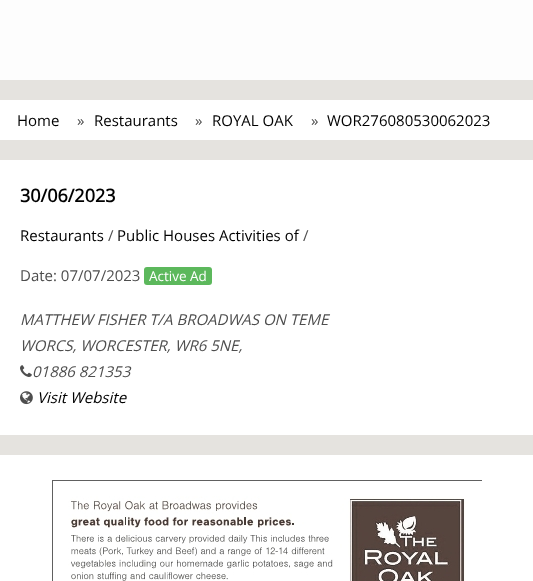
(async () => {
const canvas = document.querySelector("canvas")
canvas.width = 533
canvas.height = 581
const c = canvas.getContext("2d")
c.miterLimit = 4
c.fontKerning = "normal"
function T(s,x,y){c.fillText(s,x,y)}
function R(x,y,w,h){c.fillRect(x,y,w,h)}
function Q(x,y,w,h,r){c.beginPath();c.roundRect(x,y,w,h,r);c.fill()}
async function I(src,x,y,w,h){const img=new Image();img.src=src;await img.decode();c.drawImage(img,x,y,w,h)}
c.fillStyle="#e5e3df"
R(0,0,533,581)
c.fillStyle="#fdfdfd"
R(0,0,533,80)
c.fillStyle="#fff"
R(0,100,533,40)
c.font="15px Open Sans"
c.fillStyle="#000"
T("Home",17,126)
c.fillStyle="#4e4e4e"
T("»",77,126)
c.fillStyle="#000"
T("Restaurants",94,126)
c.fillStyle="#4e4e4e"
T("»",195,126)
c.fillStyle="#000"
T("ROYAL OAK",212,126)
c.fillStyle="#4e4e4e"
T("»",311,126)
c.fillStyle="#000"
T("WOR276080530062023",327,126)
c.fillStyle="#fff"
R(0,160,533,275)
c.font="bold 18px Open Sans"
c.fillStyle="#000"
T("30/06/2023",20,202)
c.font="15px Open Sans"
T("Restaurants",20,241)
c.fillStyle="#4e4e4e"
T("/",108,241)
c.fillStyle="#000"
T("Public Houses Activities of",117,241)
c.fillStyle="#4e4e4e"
T("/",303,241)
T("Date: 07/07/2023",20,281)
c.fillStyle="#5cb85c"
Q(144,267,68,18,3)
c.font="13.5px Open Sans"
c.fillStyle="#fff"
T("Active Ad",149,281)
c.font="italic 15px Open Sans"
c.fillStyle="#4e4e4e"
T("MATTHEW FISHER T/A BROADWAS ON TEME",20,325)
T("WORCS, WORCESTER, WR6 5NE,",20,351)
await I("1.png",20,365,12,12)
T("01886 821353",32,377)
await I("2.png",20,391,13,14)
c.fillStyle="#000"
T("Visit Website",37,403)
c.fillStyle="#fff"
R(0,455,533,126)
await I("3.png",52,480,430,101)
})()
